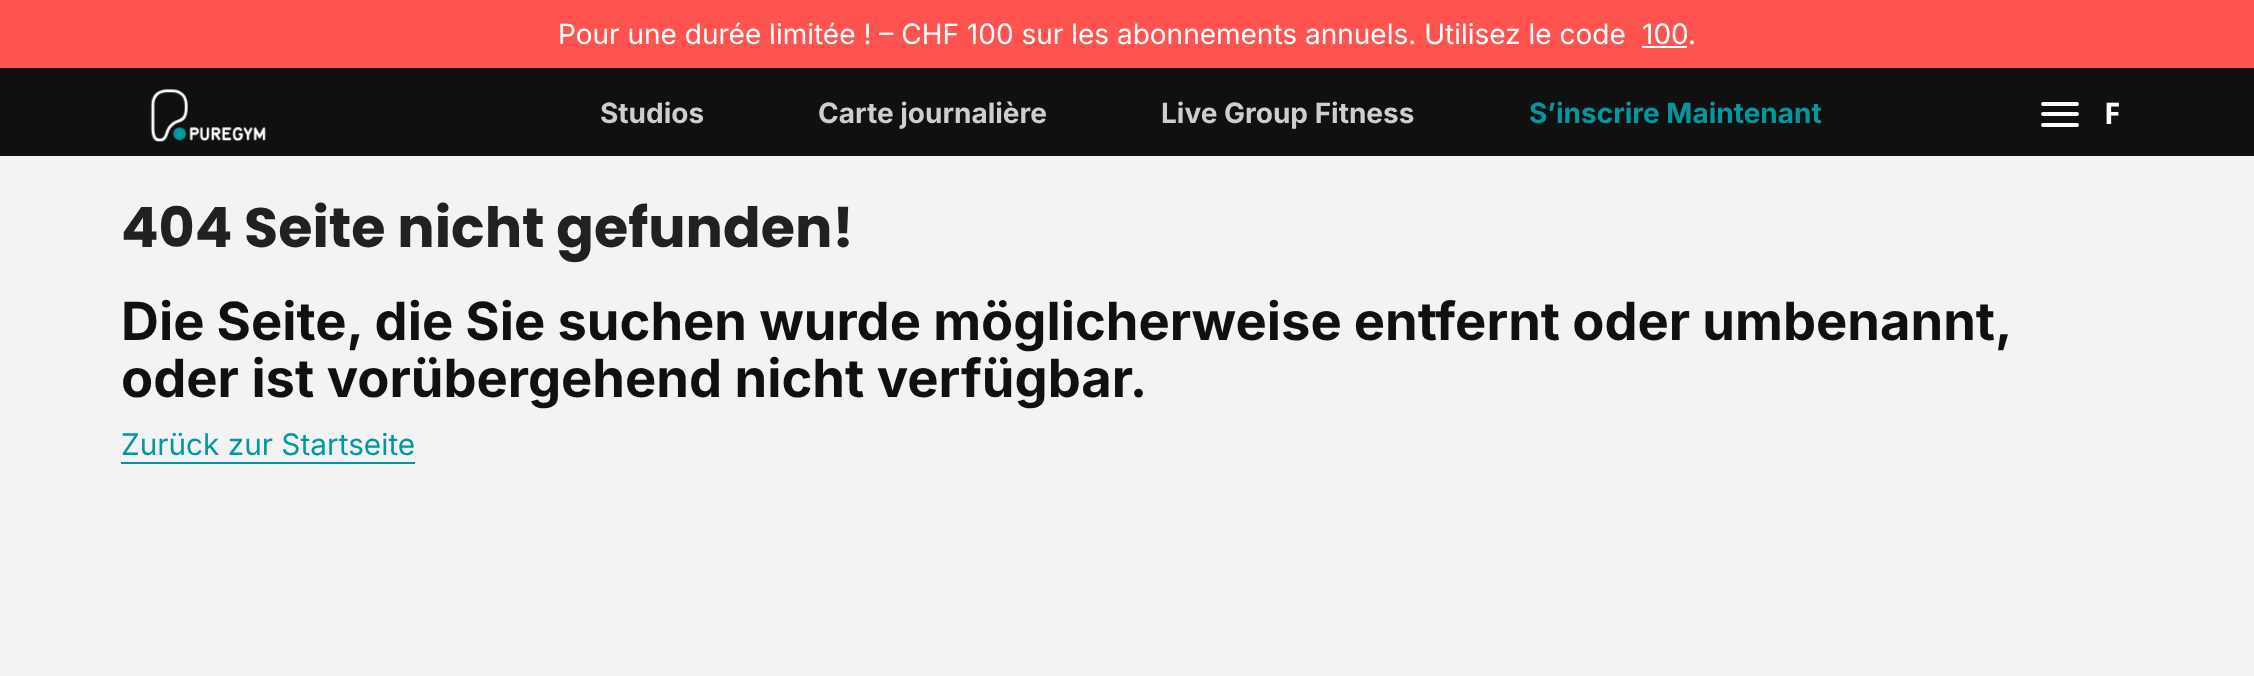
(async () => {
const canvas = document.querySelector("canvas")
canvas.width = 2254
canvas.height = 676
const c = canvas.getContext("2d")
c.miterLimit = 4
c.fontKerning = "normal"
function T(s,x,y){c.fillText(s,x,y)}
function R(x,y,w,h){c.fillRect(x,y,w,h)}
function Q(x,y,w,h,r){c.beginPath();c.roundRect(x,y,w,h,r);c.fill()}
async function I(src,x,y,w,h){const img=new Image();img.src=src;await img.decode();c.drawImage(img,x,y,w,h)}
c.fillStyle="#f3f3f3"
R(0,0,2254,676)
c.fillStyle="#101010"
R(0,68,2254,88)
c.fillStyle="#ff5350"
R(0,0,2254,68)
c.font="28px Inter"
c.fillStyle="#fff"
T("Pour une durée limitée ! – CHF 100 sur les abonnements annuels. Utilisez le code",558,44)
T("100",1642,44)
T(".",1688,44)
R(1642,46,45,2)
await I("1.png",150,89,116,53)
c.font="bold 28px Inter"
c.fillStyle="#cececf"
T("Studios",600,123)
T("Carte journalière",818,123)
T("Live Group Fitness",1161,123)
c.fillStyle="#00999d"
T("S’inscrire Maintenant",1529,123)
c.fillStyle="#fff"
Q(2041,102,38,4,2)
Q(2041,112,38,4,2)
Q(2041,123,38,4,2)
c.font="bold 29.75px Noto Sans"
T("F",2104,124)
c.font="bold 55.5px Poppins"
c.fillStyle="#212121"
T("404 Seite nicht gefunden!",121,247)
c.wordSpacing="-0.25px"
c.font="bold 52.5px Inter"
c.fillStyle="#101010"
T("Die Seite, die Sie suchen wurde möglicherweise entfernt oder umbenannt,",121,340)
c.wordSpacing="0px"
T("oder ist vorübergehend nicht verfügbar.",121,397)
c.font="29.75px Inter"
c.fillStyle="#00999d"
T("Zurück zur Startseite",121,455)
R(121,462,294,2)
})()
